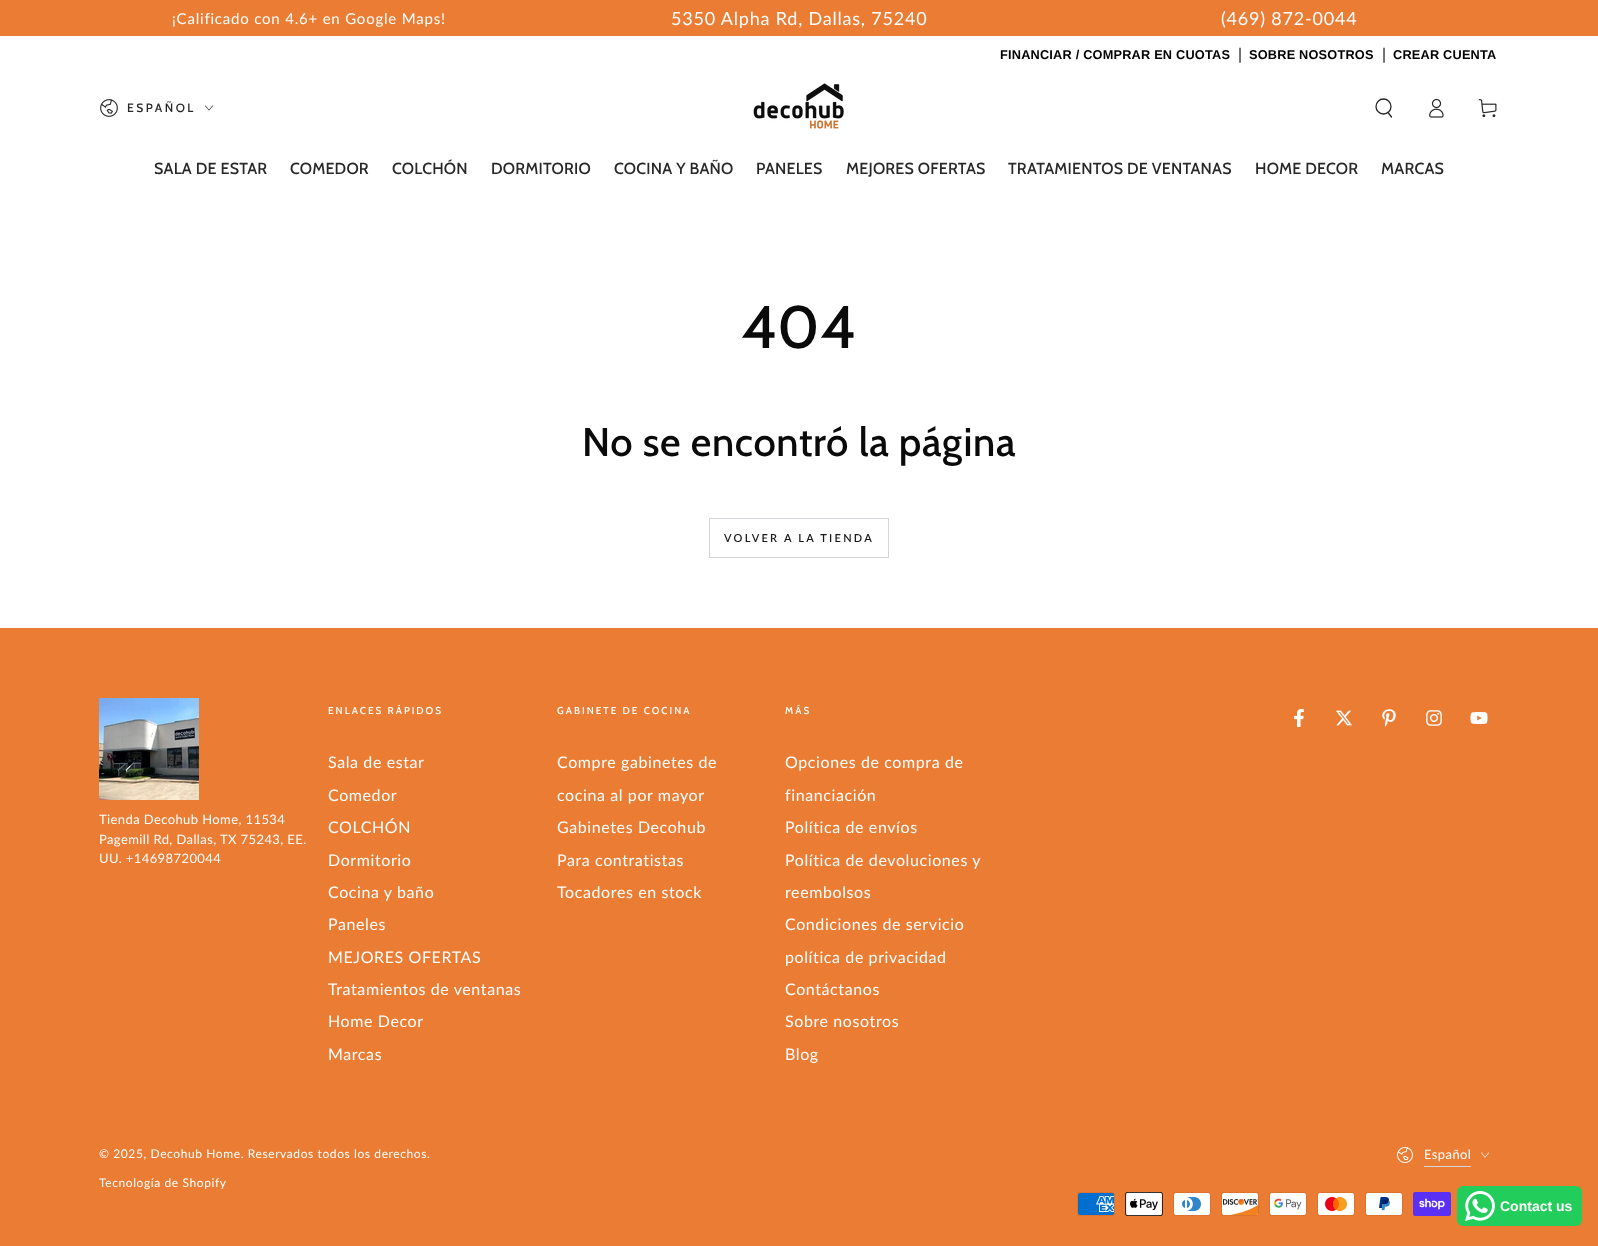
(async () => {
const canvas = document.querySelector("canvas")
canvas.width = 1598
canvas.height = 1246
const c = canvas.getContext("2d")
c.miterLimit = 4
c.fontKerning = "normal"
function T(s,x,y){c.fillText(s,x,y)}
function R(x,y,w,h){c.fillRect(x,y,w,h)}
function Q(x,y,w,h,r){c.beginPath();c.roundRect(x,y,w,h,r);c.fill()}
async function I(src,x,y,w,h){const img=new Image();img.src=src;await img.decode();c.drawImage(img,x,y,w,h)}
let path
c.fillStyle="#fff"
R(0,0,1598,1246)
c.fillStyle="#eb7c33"
R(0,0,1598,36)
c.letterSpacing="0.8px"
c.font="15px Lato"
c.fillStyle="#fff"
T("¡Calificado con 4.6+ en Google Maps!",172,24)
c.font="18px Lato"
T("5350 Alpha Rd, Dallas, 75240",671,25)
T("(469) 872-0044",1221,25)
c.letterSpacing="0.2px"
c.font="bold 12.75px Liberation Sans"
c.fillStyle="#000"
T("FINANCIAR / COMPRAR EN CUOTAS",1000,59)
c.letterSpacing="0.6px"
c.font="16px Lato"
T("|",1238,60)
c.letterSpacing="0.2px"
c.font="bold 12.75px Liberation Sans"
T("SOBRE NOSOTROS",1249,59)
c.letterSpacing="0.6px"
c.font="16px Lato"
T("|",1382,60)
c.letterSpacing="0.2px"
c.font="bold 12.75px Liberation Sans"
T("CREAR CUENTA",1393,59)
await I("1.png",100,99,18,18)
c.letterSpacing="2.5px"
c.font="500 12px Cabin"
c.fillStyle="#282828"
T("ESPAÑOL",127,112)
await I("2.png",205,105,8,6)
await I("3.png",753,83,91,46)
c.beginPath()
c.arc(1383.5,106.5,7.5,0,7)
c.strokeStyle="#282828"
c.lineWidth=1.3
c.stroke()
path = new Path2D("M1388 112.5l3.5 4.5")
c.lineCap="round"
c.stroke(path)
await I("4.png",1429,98,15,20)
await I("5.png",1478,99,19,19)
c.letterSpacing="0.2px"
c.font="500 16px Cabin"
T("SALA DE ESTAR",154,174)
T("COMEDOR",290,174)
T("COLCHÓN",392,174)
T("DORMITORIO",491,174)
T("COCINA Y BAÑO",614,174)
T("PANELES",756,174)
T("MEJORES OFERTAS",846,174)
T("TRATAMIENTOS DE VENTANAS",1008,174)
T("HOME DECOR",1255,174)
T("MARCAS",1381,174)
c.letterSpacing="0.6px"
c.font="500 60px Cabin"
c.fillStyle="#0a0a0a"
T("404",741,348)
c.font="500 40px Cabin"
T("No se encontró la página",582,456)
c.strokeStyle="#d2d5d9"
c.lineWidth=1
c.strokeRect(709.5,518.5,179,39)
c.letterSpacing="2.25px"
c.font="600 11px Lato"
c.fillStyle="#1a1b18"
T("VOLVER A LA TIENDA",724,542)
c.fillStyle="#eb7c33"
R(0,628,1598,618)
await I("6.png",99,698,100,102)
c.letterSpacing="0.4px"
c.font="13px Lato"
c.fillStyle="#fff"
T("Tienda Decohub Home, 11534",99,824)
T("Pagemill Rd, Dallas, TX 75243, EE.",99,844)
T("UU. +14698720044",99,863)
c.letterSpacing="2px"
c.font="500 10px Cabin"
T("ENLACES RÁPIDOS",328,714)
c.letterSpacing="0.6px"
c.font="16px Lato"
T("Sala de estar",328,768)
T("Comedor",328,801)
T("COLCHÓN",328,833)
T("Dormitorio",328,866)
T("Cocina y baño",328,898)
T("Paneles",328,930)
T("MEJORES OFERTAS",328,963)
T("Tratamientos de ventanas",328,995)
T("Home Decor",328,1027)
T("Marcas",328,1060)
c.letterSpacing="2px"
c.font="500 10px Cabin"
T("GABINETE DE COCINA",557,714)
c.letterSpacing="0.6px"
c.font="16px Lato"
T("Compre gabinetes de",557,768)
T("cocina al por mayor",557,801)
T("Gabinetes Decohub",557,833)
T("Para contratistas",557,866)
T("Tocadores en stock",557,898)
c.letterSpacing="2px"
c.font="500 10px Cabin"
T("MÁS",785,714)
c.letterSpacing="0.6px"
c.font="16px Lato"
T("Opciones de compra de",785,768)
T("financiación",785,801)
T("Política de envíos",785,833)
T("Política de devoluciones y",785,866)
T("reembolsos",785,898)
T("Condiciones de servicio",785,930)
T("política de privacidad",785,963)
T("Contáctanos",785,995)
T("Sobre nosotros",785,1027)
T("Blog",785,1060)
await I("7.png",1294,709,10,18)
await I("8.png",1336,710,16,16)
await I("9.png",1382,709,14,18)
await I("10.png",1426,710,16,16)
await I("11.png",1470,712,18,12)
c.font="12px Lato"
T("© 2025, Decohub Home. Reservados todos los derechos.",99,1158)
T("Tecnología de Shopify",99,1187)
await I("12.png",1397,1147,16,16)
c.fillStyle="#d2d5d9"
R(1424,1166,47,1)
c.letterSpacing="0.4px"
c.font="13px Lato"
c.fillStyle="#fff"
T("Español",1424,1159)
await I("13.png",1481,1152,8,6)
await I("14.png",1077,1192,38,24)
await I("15.png",1125,1192,38,24)
await I("16.png",1173,1192,38,24)
await I("17.png",1221,1192,38,24)
await I("18.png",1269,1192,38,24)
await I("19.png",1317,1192,38,24)
await I("20.png",1365,1192,38,24)
await I("21.png",1413,1192,38,24)
c.fillStyle="#22cd5b"
Q(1457,1186,125,40,6)
await I("22.png",1465,1191,30,30)
c.letterSpacing="0px"
c.font="bold 14px Liberation Sans"
c.fillStyle="#fff"
T("Contact us",1500,1211)
})()
